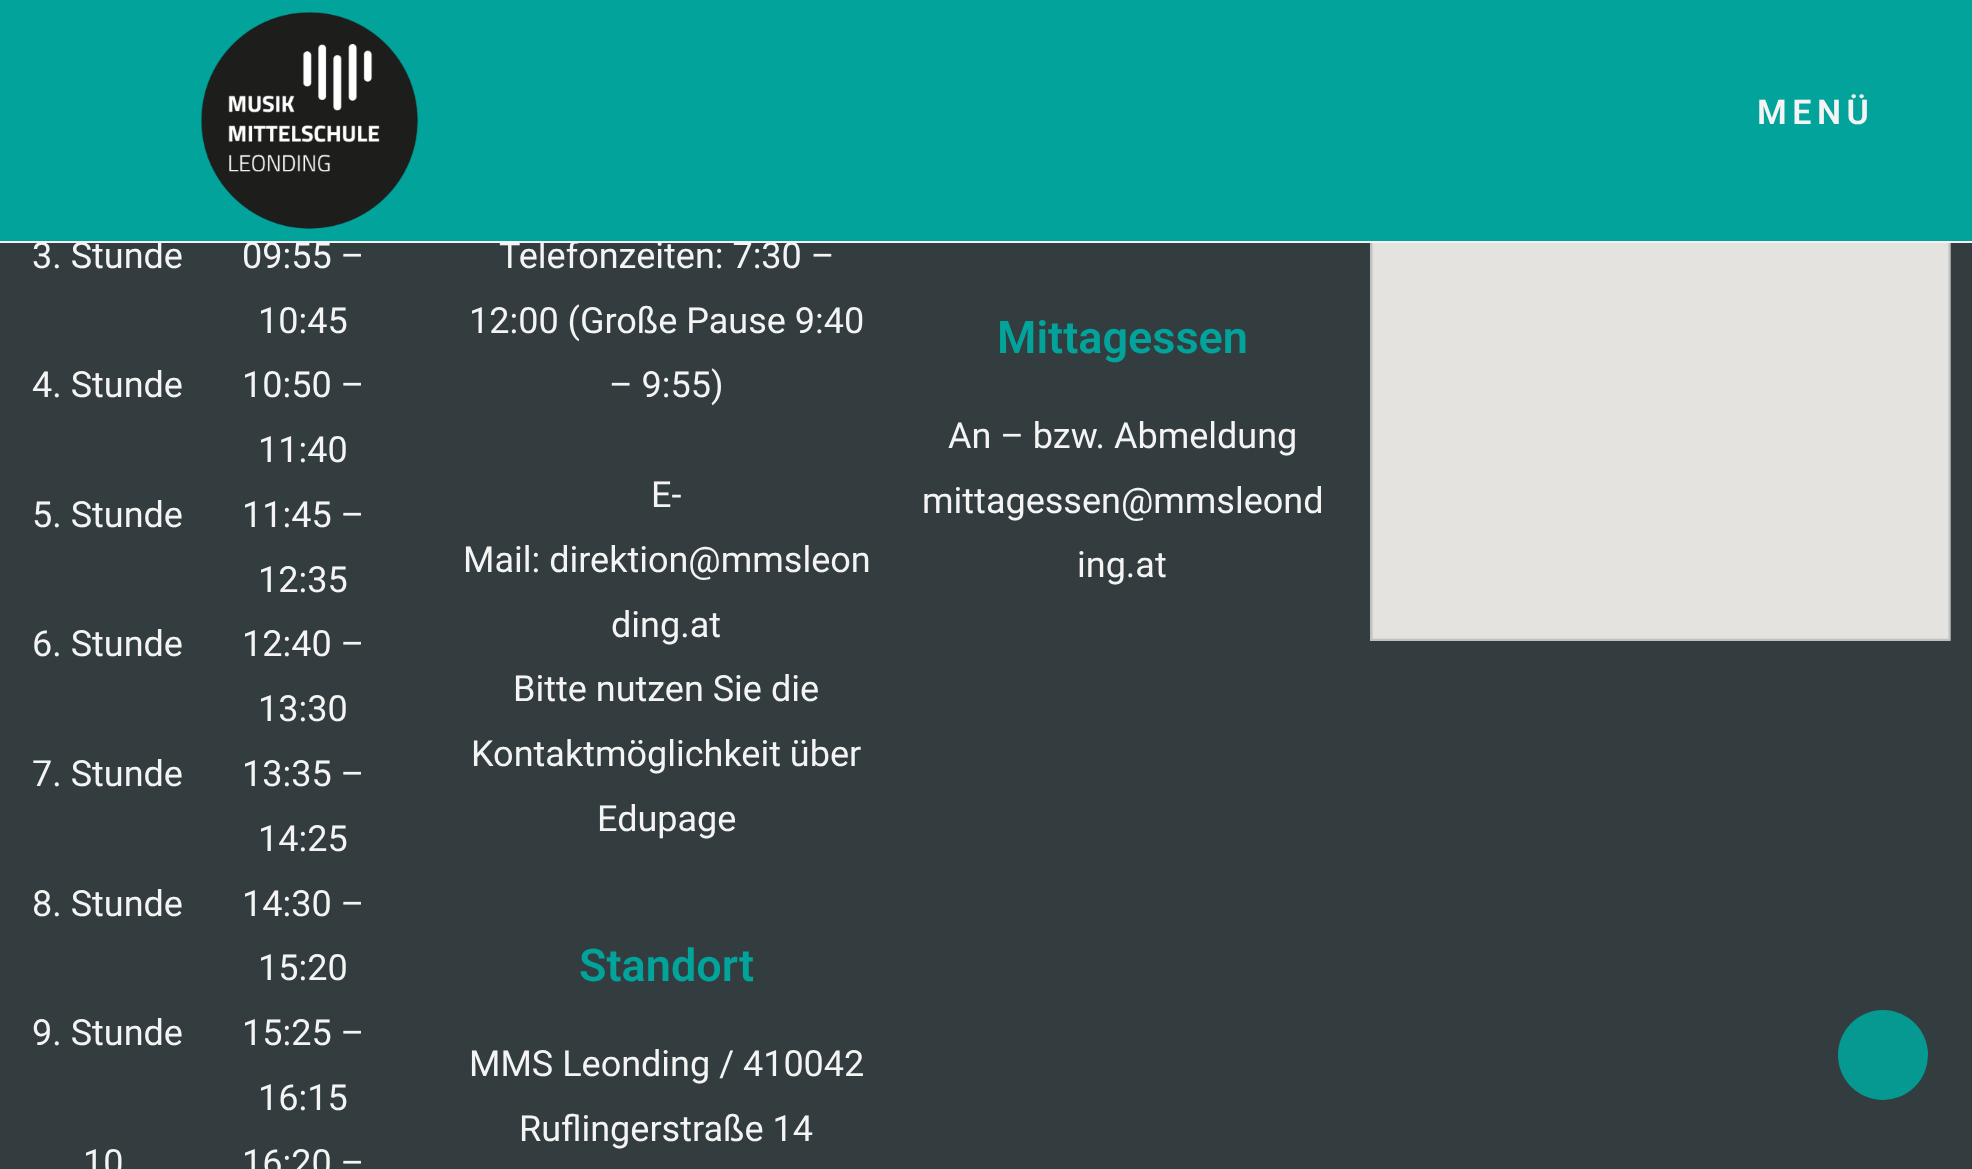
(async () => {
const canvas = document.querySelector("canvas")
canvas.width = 1972
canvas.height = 1169
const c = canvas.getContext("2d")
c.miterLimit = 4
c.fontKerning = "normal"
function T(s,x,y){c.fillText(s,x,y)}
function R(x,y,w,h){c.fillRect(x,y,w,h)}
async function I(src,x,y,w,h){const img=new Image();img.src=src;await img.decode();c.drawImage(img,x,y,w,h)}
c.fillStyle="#333d40"
R(0,0,1972,1169)
c.font="36px Roboto"
c.fillStyle="#f4f4f4"
T("Telefonzeiten: 7:30 –",499,268)
c.fillStyle="#01a39b"
R(0,0,1972,241)
c.fillStyle="#f4f4f4"
R(0,241,1972,2)
await I("1.png",201,12,218,217)
c.letterSpacing="5.5px"
c.font="600 34px Roboto"
T("MENÜ",1757,124)
c.letterSpacing="0px"
c.font="36px Roboto"
T("3. Stunde",32,268)
T("09:55 –",242,268)
T("10:45",258,333)
T("4. Stunde",32,397)
T("10:50 –",242,397)
T("11:40",258,462)
T("5. Stunde",32,527)
T("11:45 –",242,527)
T("12:35",258,592)
T("6. Stunde",32,656)
T("12:40 –",242,656)
T("13:30",258,721)
T("7. Stunde",32,786)
T("13:35 –",242,786)
T("14:25",258,851)
T("8. Stunde",32,916)
T("14:30 –",242,916)
T("15:20",258,980)
T("9. Stunde",32,1045)
T("15:25 –",242,1045)
T("16:15",258,1110)
T("10",83,1175)
T("16:20 –",242,1175)
T("12:00 (Große Pause 9:40",469,333)
T("– 9:55)",609,397)
T("E-",651,507)
T("Mail: direktion@mmsleon",463,572)
T("ding.at",611,637)
T("Bitte nutzen Sie die",513,701)
T("Kontaktmöglichkeit über",471,766)
T("Edupage",597,831)
c.font="600 45px Roboto"
c.fillStyle="#01a39b"
T("Standort",579,981)
c.font="36px Roboto"
c.fillStyle="#f4f4f4"
T("MMS Leonding / 410042",469,1076)
T("Ruflingerstraße 14",519,1141)
c.font="600 45px Roboto"
c.fillStyle="#01a39b"
T("Mittagessen",997,353)
c.font="36px Roboto"
c.fillStyle="#f4f4f4"
T("An – bzw. Abmeldung",948,448)
T("mittagessen@mmsleond",922,513)
T("ing.at",1077,577)
await I("2.png",1370,243,581,398)
c.fillStyle="#069992"
c.beginPath()
c.arc(1883,1055,45,0,7)
c.fill()
})()
